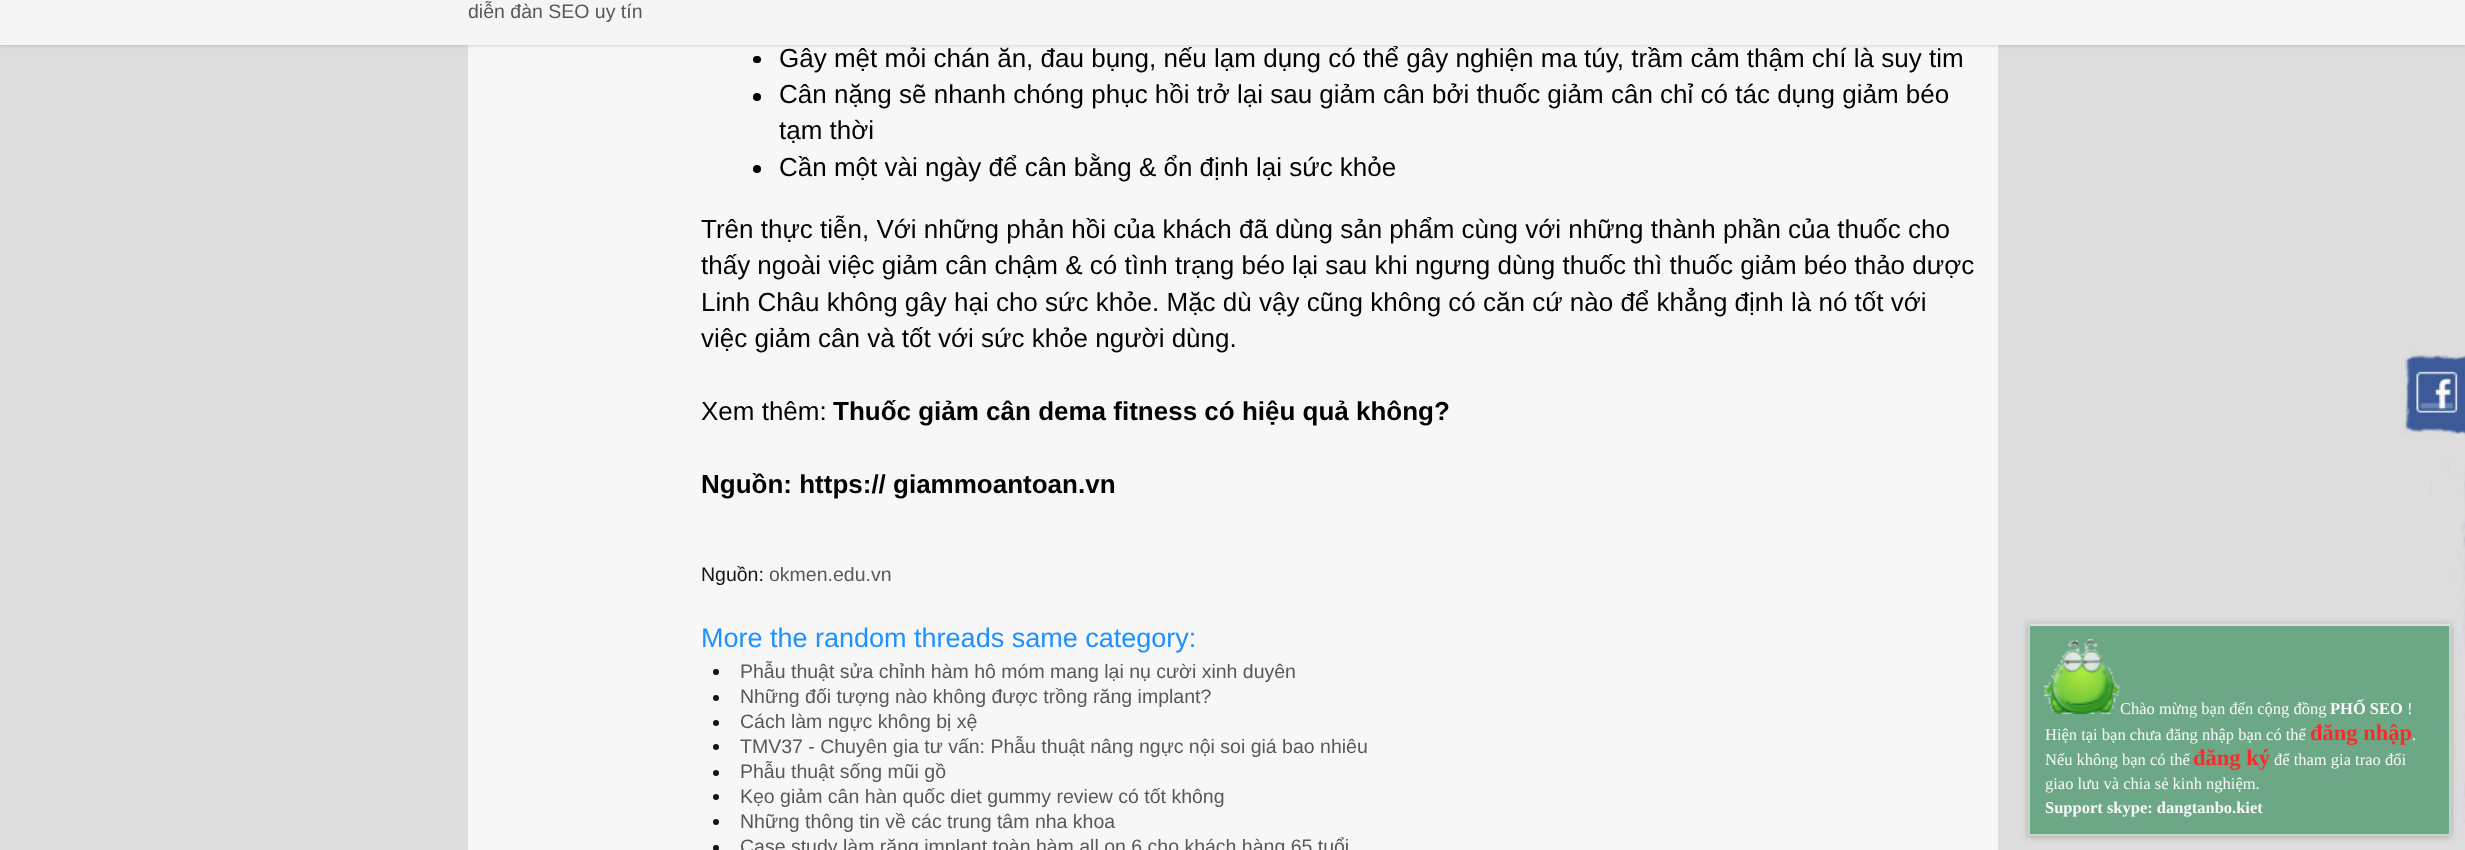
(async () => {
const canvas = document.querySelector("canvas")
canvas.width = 2465
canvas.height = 850
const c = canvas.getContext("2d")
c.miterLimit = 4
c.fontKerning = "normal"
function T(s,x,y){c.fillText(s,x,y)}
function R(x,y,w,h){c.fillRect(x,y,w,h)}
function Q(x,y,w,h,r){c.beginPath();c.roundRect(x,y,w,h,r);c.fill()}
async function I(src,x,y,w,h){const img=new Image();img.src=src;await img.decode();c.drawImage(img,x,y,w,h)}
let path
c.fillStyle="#ddd"
R(0,0,2465,850)
c.fillStyle="#f7f7f7"
R(468,45,1530,805)
c.fillStyle="#00000033"
c.filter="blur(2px)"
c.beginPath()
c.rect(0,0,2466,45)
c.fill()
c.filter="none"
c.fillStyle="#f5f5f5"
R(0,0,2465,45)
c.font="19.5px Liberation Sans"
c.fillStyle="#585858"
T("diễn đàn SEO uy tín",468,18)
c.fillStyle="#020202"
Q(753,56,8,7,3.5)
c.font="26px Liberation Sans"
T("Gây mệt mỏi chán ăn, đau bụng, nếu lạm dụng có thể gây nghiện ma túy, trầm cảm thậm chí là suy tim",779,67)
c.beginPath()
c.arc(757,97,4,0,7)
c.fill()
T("Cân nặng sẽ nhanh chóng phục hồi trở lại sau giảm cân bởi thuốc giảm cân chỉ có tác dụng giảm béo",779,103)
T("tạm thời",779,139)
c.beginPath()
c.arc(757,169,4,0,7)
c.fill()
T("Cần một vài ngày để cân bằng & ổn định lại sức khỏe",779,176)
T("Trên thực tiễn, Với những phản hồi của khách đã dùng sản phẩm cùng với những thành phần của thuốc cho",701,238)
T("thấy ngoài việc giảm cân chậm & có tình trạng béo lại sau khi ngưng dùng thuốc thì thuốc giảm béo thảo dược",701,274)
T("Linh Châu không gây hại cho sức khỏe. Mặc dù vậy cũng không có căn cứ nào để khẳng định là nó tốt với",701,311)
T("việc giảm cân và tốt với sức khỏe người dùng.",701,347)
T("Xem thêm:",701,420)
c.font="bold 26px Liberation Sans"
T("Thuốc giảm cân dema fitness có hiệu quả không?",833,420)
T("Nguồn: https:// giammoantoan.vn",701,493)
c.font="19.5px Liberation Sans"
c.fillStyle="#141414"
T("Nguồn:",701,581)
c.fillStyle="#585858"
T("okmen.edu.vn",769,581)
c.font="27px Liberation Sans"
c.fillStyle="#1e90ff"
T("More the random threads same category:",701,647)
c.fillStyle="#141414"
c.beginPath()
c.arc(716,672,3,0,7)
c.fill()
c.font="19.5px Liberation Sans"
c.fillStyle="#585858"
T("Phẫu thuật sửa chỉnh hàm hô móm mang lại nụ cười xinh duyên",740,678)
c.fillStyle="#141414"
c.beginPath()
c.arc(716,698,3,0,7)
c.fill()
c.fillStyle="#585858"
T("Những đối tượng nào không được trồng răng implant?",740,703)
c.fillStyle="#141414"
c.beginPath()
c.arc(716,723,3,0,7)
c.fill()
c.fillStyle="#585858"
T("Cách làm ngực không bị xệ",740,728)
c.fillStyle="#141414"
c.beginPath()
c.arc(716,747,3,0,7)
c.fill()
c.fillStyle="#585858"
T("TMV37 - Chuyên gia tư vấn: Phẫu thuật nâng ngực nội soi giá bao nhiêu",740,753)
c.fillStyle="#141414"
c.beginPath()
c.arc(716,773,3,0,7)
c.fill()
c.fillStyle="#585858"
T("Phẫu thuật sống mũi gồ",740,778)
c.fillStyle="#141414"
c.beginPath()
c.arc(716,797,3,0,7)
c.fill()
c.fillStyle="#585858"
T("Kẹo giảm cân hàn quốc diet gummy review có tốt không",740,803)
c.fillStyle="#141414"
c.beginPath()
c.arc(716,822,3,0,7)
c.fill()
c.fillStyle="#585858"
T("Những thông tin về các trung tâm nha khoa",740,828)
c.fillStyle="#141414"
c.beginPath()
c.arc(716,848,3,0,7)
c.fill()
c.fillStyle="#585858"
T("Case study làm răng implant toàn hàm all on 6 cho khách hàng 65 tuổi",740,853)
await I("2.png",2404,351,61,472)
c.save()
path = new Path2D("M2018 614h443v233h-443zm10 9h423v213h-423z")
c.clip(path,"evenodd")
c.fillStyle="#0000003d"
c.filter="blur(3px)"
c.beginPath()
c.rect(2028,624,423,213)
c.fill()
c.filter="none"
c.restore()
c.fillStyle="#509b70cc"
R(2028,623,423,213)
c.fillStyle="#dfdfdf"
R(2030,624,420,2)
c.strokeStyle="#e0e0e0cc"
c.lineWidth=2
c.strokeRect(2029,624,421,211)
await I("1.png",2044,639,76,75)
c.font="16.5px Liberation Serif"
c.fillStyle="#f8f8f8"
T("Chào mừng bạn đến cộng đồng",2120,714)
c.font="bold 16.5px Liberation Serif"
T("PHỐ SEO",2330,714)
c.font="16.5px Liberation Serif"
T("!",2407,714)
T("Hiện tại bạn chưa đăng nhập bạn có thể",2045,740)
c.font="bold 22.5px Liberation Serif"
c.fillStyle="#f82c2c"
T("đăng nhập",2310,740)
c.font="16.5px Liberation Serif"
c.fillStyle="#f8f8f8"
T(".",2412,740)
T("Nếu không bạn có thể",2045,765)
c.font="bold 22.5px Liberation Serif"
c.fillStyle="#f82c2c"
T("đăng ký",2193,765)
c.font="16.5px Liberation Serif"
c.fillStyle="#f8f8f8"
T("để tham gia trao đổi",2274,765)
T("giao lưu và chia sẻ kinh nghiệm.",2045,789)
c.font="bold 16.5px Liberation Serif"
T("Support skype: dangtanbo.kiet",2045,813)
})()
